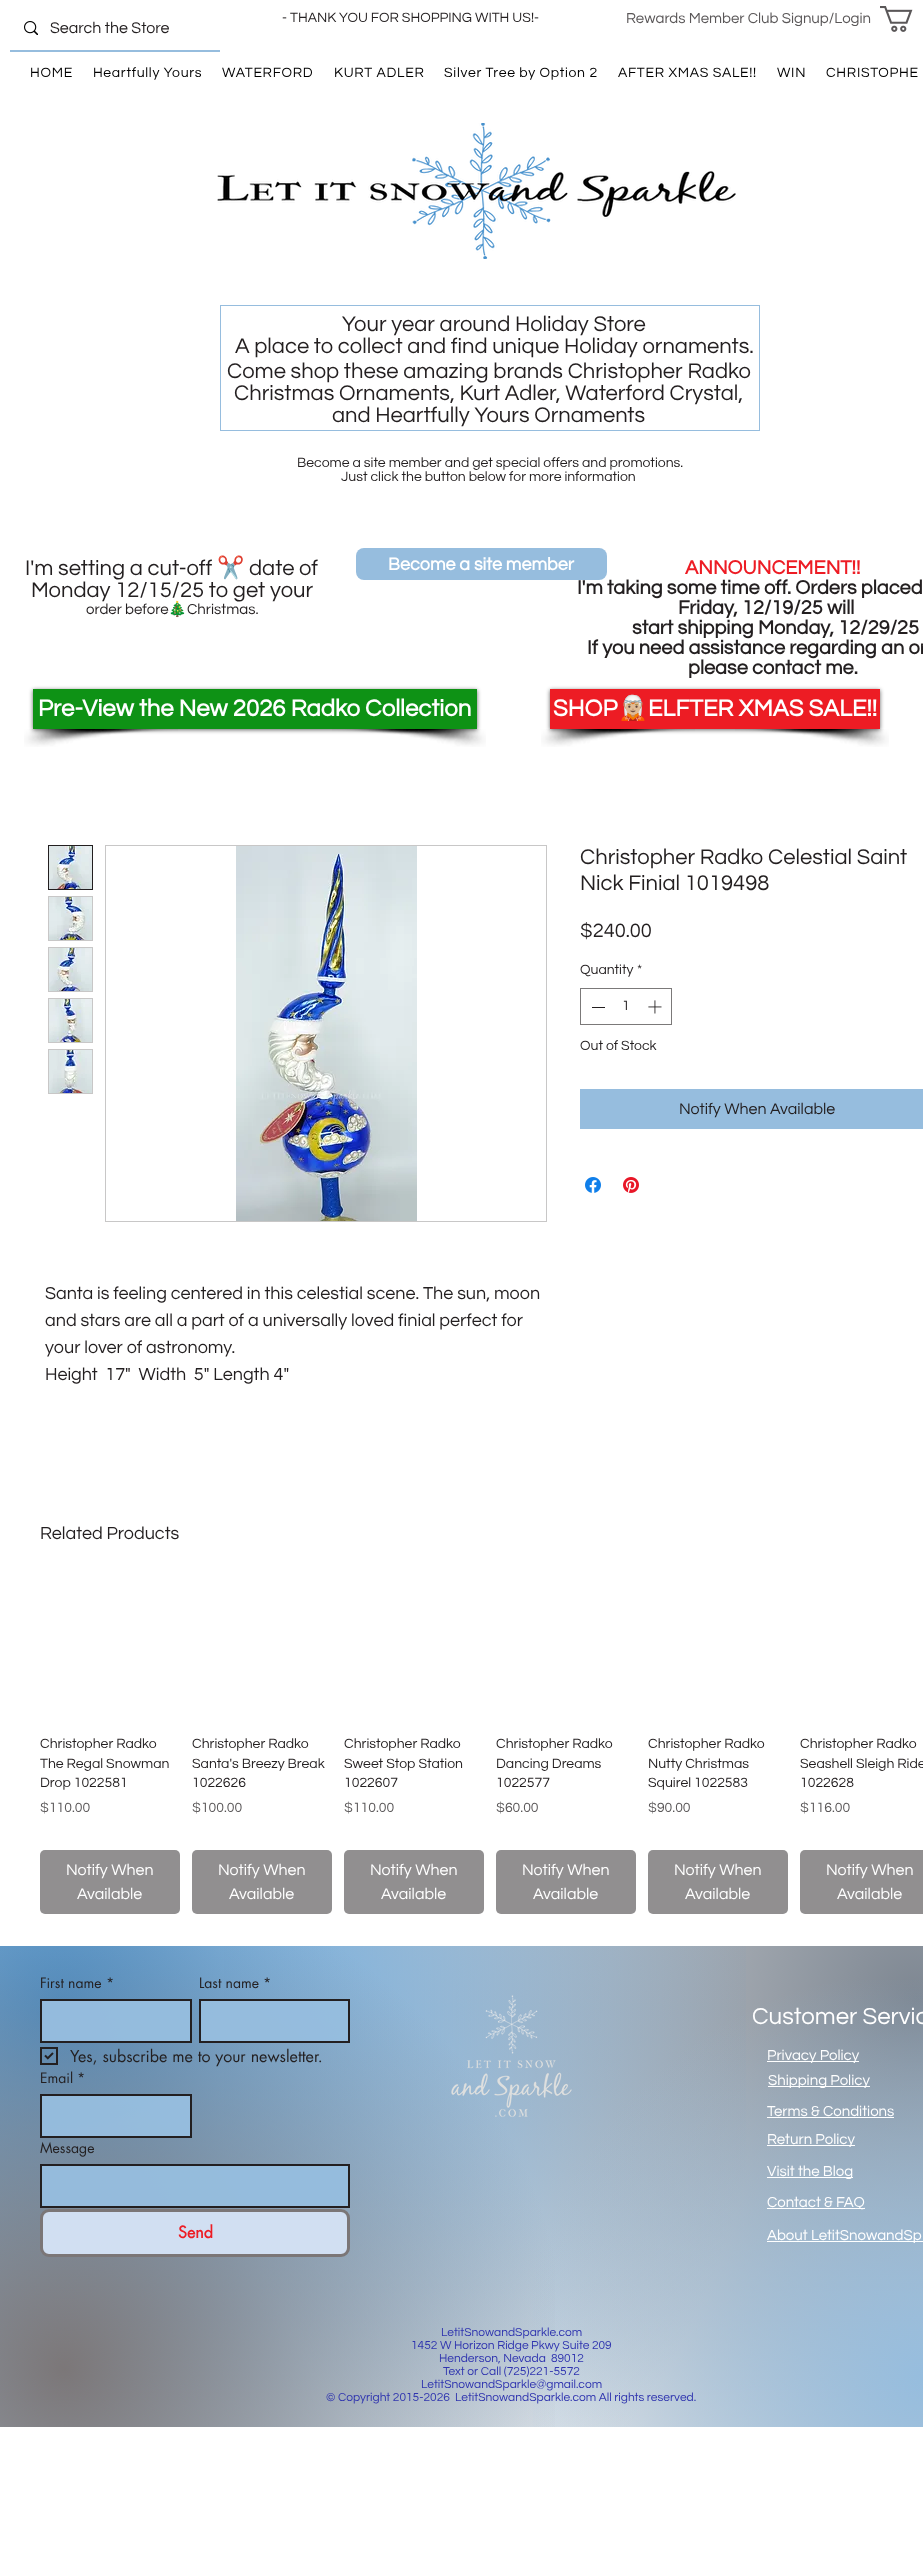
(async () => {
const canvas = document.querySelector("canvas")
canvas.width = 923
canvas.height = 2559
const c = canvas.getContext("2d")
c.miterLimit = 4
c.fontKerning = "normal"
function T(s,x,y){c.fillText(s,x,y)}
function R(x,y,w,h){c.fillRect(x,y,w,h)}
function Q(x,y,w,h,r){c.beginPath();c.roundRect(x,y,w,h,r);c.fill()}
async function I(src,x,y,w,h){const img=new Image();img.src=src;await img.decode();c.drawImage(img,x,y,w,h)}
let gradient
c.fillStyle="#fff"
R(0,0,923,2559)
c.fillStyle="#96bdde"
R(10,50,210,2)
await I("1.png",24,21,14,14)
c.font="16px Questrial"
c.fillStyle="#231f20"
T("Search the Store",50,33)
c.font="15px Questrial"
c.fillStyle="#5a5758"
T("Rewards Member Club Signup/Login",626,23)
await I("2.png",880,6,33,26)
c.letterSpacing="0.7px"
c.font="14px Questrial"
c.fillStyle="#000"
T("HOME",30,77)
T("Heartfully Yours",93,77)
T("WATERFORD",222,77)
T("KURT ADLER",334,77)
T("Silver Tree by Option 2",444,77)
T("AFTER XMAS SALE!!",618,77)
T("WIN",777,77)
T("CHRISTOPHE",826,77)
c.letterSpacing="0px"
c.fillStyle="#231f20"
T("- THANK YOU FOR SHOPPING WITH US!-",282,22)
await I("3.png",217,123,519,136)
c.strokeStyle="#96bdde"
c.strokeRect(220.5,305.5,539,125)
c.font="22px Questrial"
T("Your year around Holiday Store",342,331)
T("A place to collect and find unique Holiday ornaments.",235,353)
T("Come shop these amazing brands Christopher Radko",227,378)
T("Christmas Ornaments, Kurt Adler, Waterford Crystal,",234,400)
T("and Heartfully Yours Ornaments",332,422)
c.font="14px Questrial"
T("Become a site member and get special offers and promotions.",297,467)
T("Just click the button below for more information",341,481)
c.font="22px Questrial"
T("I'm setting a cut-off",25,575)
c.font="22px Noto Color Emoji"
T("✂️",217,575)
c.font="22px Questrial"
T("date of",249,575)
T("Monday 12/15/25 to get your",31,597)
c.font="15px Questrial"
T("order before",86,614)
c.font="15px Noto Color Emoji"
T("🎄",168,614)
c.font="15px Questrial"
T("Christmas.",187,614)
c.fillStyle="#96bdde"
Q(356,548,251,32,8)
c.font="bold 18px Questrial"
c.fillStyle="#fff"
T("Become a site member",388,570)
c.font="bold 20px Questrial"
c.fillStyle="#ed1c24"
T("ANNOUNCEMENT!!",685,574)
c.fillStyle="#231f20"
T("I'm taking some time off. Orders placed",577,594)
T("Friday, 12/19/25 will",678,614)
T("start shipping Monday, 12/29/25",632,634)
T("If you need assistance regarding an or",587,654)
T("please contact me.",688,674)
await I("4.png",24,729,154,18)
await I("5.png",332,729,154,18)
c.fillStyle="#00000099"
c.filter="blur(2px)"
c.beginPath()
c.rect(33,690,444,40)
c.fill()
c.filter="none"
c.fillStyle="#0e9215"
R(33,689,444,40)
c.font="bold 24px Questrial"
c.fillStyle="#fff"
T("Pre-View the New 2026 Radko Collection",38,716)
await I("4.png",541,729,154,18)
await I("5.png",735,729,154,18)
c.fillStyle="#00000099"
c.filter="blur(2px)"
c.beginPath()
c.rect(550,690,330,40)
c.fill()
c.filter="none"
c.fillStyle="#ed1c24"
R(550,689,330,40)
c.fillStyle="#fff"
T("SHOP",553,716)
c.font="bold 24px Noto Color Emoji"
T("🧝🏼",618,716)
c.font="bold 24px Questrial"
T("ELFTER XMAS SALE!!",648,716)
c.font="22px Questrial"
c.fillStyle="#231f20"
T("Christopher Radko Celestial Saint",580,864)
T("Nick Finial 1019498",580,890)
c.font="20px Questrial"
T("$240.00",580,937)
c.font="14px Questrial"
T("Quantity",580,974)
T("*",637,974)
c.strokeStyle="#7b7979"
c.strokeRect(580.5,988.5,91,36)
R(592,1007,13,1)
T("1",622,1010)
await I("6.png",648,1000,14,14)
T("Out of Stock",580,1050)
c.fillStyle="#96bdde"
R(580,1089,343,40)
c.font="16px Questrial"
c.fillStyle="#231f20"
T("Notify When Available",679,1114)
await I("7.png",585,1177,16,16)
await I("8.png",623,1177,16,16)
c.strokeStyle="#231f20"
c.strokeRect(48.5,845.5,44,44)
await I("9.png",49,846,43,43)
c.fillStyle="#c8c7c7"
R(48,896,45,45)
await I("10.png",49,897,43,43)
R(48,947,45,45)
await I("11.png",49,948,43,43)
R(48,998,45,45)
await I("12.png",49,999,43,43)
R(48,1049,45,45)
await I("13.png",49,1050,43,43)
c.strokeStyle="#c8c7c7"
c.strokeRect(105.5,845.5,441,376)
await I("14.png",236,846,181,375)
c.font="18px Questrial"
c.fillStyle="#231f20"
T("Santa is feeling centered in this celestial scene. The sun, moon",45,1299)
T("and stars are all a part of a universally loved finial perfect for",45,1326)
T("your lover of astronomy.",45,1353)
T("Height  17\"  Width  5\" Length 4\"",45,1380)
T("Related Products",40,1539)
c.font="14px Questrial"
T("Christopher Radko",40,1748)
T("The Regal Snowman",40,1768)
T("Drop 1022581",40,1787)
c.fillStyle="#5a5758"
T("$110.00",40,1812)
c.fillStyle="#918f90"
Q(40,1850,140,64,5)
c.font="16px Questrial"
c.fillStyle="#fff"
T("Notify When",66,1875)
T("Available",77,1899)
c.font="14px Questrial"
c.fillStyle="#231f20"
T("Christopher Radko",192,1748)
T("Santa's Breezy Break",192,1768)
T("1022626",192,1787)
c.fillStyle="#5a5758"
T("$100.00",192,1812)
c.fillStyle="#918f90"
Q(192,1850,140,64,5)
c.font="16px Questrial"
c.fillStyle="#fff"
T("Notify When",218,1875)
T("Available",229,1899)
c.font="14px Questrial"
c.fillStyle="#231f20"
T("Christopher Radko",344,1748)
T("Sweet Stop Station",344,1768)
T("1022607",344,1787)
c.fillStyle="#5a5758"
T("$110.00",344,1812)
c.fillStyle="#918f90"
Q(344,1850,140,64,5)
c.font="16px Questrial"
c.fillStyle="#fff"
T("Notify When",370,1875)
T("Available",381,1899)
c.font="14px Questrial"
c.fillStyle="#231f20"
T("Christopher Radko",496,1748)
T("Dancing Dreams",496,1768)
T("1022577",496,1787)
c.fillStyle="#5a5758"
T("$60.00",496,1812)
c.fillStyle="#918f90"
Q(496,1850,140,64,5)
c.font="16px Questrial"
c.fillStyle="#fff"
T("Notify When",522,1875)
T("Available",533,1899)
c.font="14px Questrial"
c.fillStyle="#231f20"
T("Christopher Radko",648,1748)
T("Nutty Christmas",648,1768)
T("Squirel 1022583",648,1787)
c.fillStyle="#5a5758"
T("$90.00",648,1812)
c.fillStyle="#918f90"
Q(648,1850,140,64,5)
c.font="16px Questrial"
c.fillStyle="#fff"
T("Notify When",674,1875)
T("Available",685,1899)
c.font="14px Questrial"
c.fillStyle="#231f20"
T("Christopher Radko",800,1748)
T("Seashell Sleigh Ride",800,1768)
T("1022628",800,1787)
c.fillStyle="#5a5758"
T("$116.00",800,1812)
c.fillStyle="#918f90"
Q(800,1850,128,64,5)
c.font="16px Questrial"
c.fillStyle="#fff"
T("Notify When",826,1875)
T("Available",837,1899)
gradient = c.createRadialGradient(918,2001,0,918,2001,1012)
gradient.addColorStop(0,"#7d8691")
gradient.addColorStop(.7,"#fff")
c.fillStyle = gradient
R(224,1946,699,481)
gradient = c.createRadialGradient(60,2007,0,60,2007,1011)
gradient.addColorStop(0,"#4891ce")
gradient.addColorStop(.7,"#4891ce00")
c.fillStyle = gradient
R(0,1946,746,481)
gradient = c.createRadialGradient(64,2369,0,64,2369,1009)
gradient.addColorStop(0,"#7b7677fc")
gradient.addColorStop(.5,"#7b767700")
c.fillStyle = gradient
R(0,1946,555,481)
gradient = c.createRadialGradient(925,2377,0,925,2377,1020)
gradient.addColorStop(0,"#96bdde")
gradient.addColorStop(.4,"#96bdde00")
c.fillStyle = gradient
R(533,1980,390,447)
c.font="14px futura"
c.fillStyle="#231f20"
T("First name",40,1988)
T("*",106,1988)
T("Last name",199,1988)
T("*",263,1988)
c.fillStyle="#96bddef7"
c.beginPath()
c.rect(41,2000,150,42)
c.fill()
c.strokeStyle="#231f20"
c.lineWidth=2
c.stroke()
c.beginPath()
c.rect(200,2000,149,42)
c.fill()
c.stroke()
c.strokeRect(41,2048,16,16)
await I("15.png",44,2052,10,8)
c.font="16px futura"
c.fillStyle="#231f20"
T("Yes, subscribe me to your newsletter.",70,2062)
c.font="14px futura"
T("Email",40,2083)
T("*",77,2083)
c.fillStyle="#96bddef7"
c.beginPath()
c.rect(41,2095,150,42)
c.fill()
c.stroke()
c.fillStyle="#231f20"
T("Message",40,2153)
c.fillStyle="#96bddef7"
c.beginPath()
c.rect(41,2165,308,42)
c.fill()
c.stroke()
c.fillStyle="#d1dff2"
c.beginPath()
c.roundRect(41.5,2210.5,307,45,7.5)
c.fill()
c.strokeStyle="#7b7677"
c.lineWidth=3
c.stroke()
c.font="bold 16px futura"
c.fillStyle="#ed1c24"
T("Send",178,2238)
await I("16.png",451,1995,121,123)
c.font="24px Questrial"
c.fillStyle="#fff"
T("Customer Servic",752,2024)
R(767,2061,92,1)
c.font="15px Questrial"
T("Privacy Policy",767,2060)
R(768,2086,102,1)
T("Shipping Policy",768,2085)
T("Terms & Conditions",767,2116)
R(767,2117,127,1)
R(767,2145,88,1)
T("Return Policy",767,2144)
R(767,2177,86,1)
T("Visit the Blog",767,2176)
R(767,2208,98,1)
T("Contact & FAQ",767,2207)
R(767,2241,156,1)
T("About LetitSnowandSp",767,2240)
c.font="12px Questrial"
c.fillStyle="#2f34af"
T("LetitSnowandSparkle.com",441,2336)
T("1452 W Horizon Ridge Pkwy Suite 209",411,2349)
T("Henderson, Nevada  89012",439,2362)
T("Text or Call (725)221-5572",443,2375)
T("LetitSnowandSparkle@gmail.com",421,2388)
T("© Copyright 2015-2026  LetitSnowandSparkle.com All rights reserved.",326,2401)
})()
